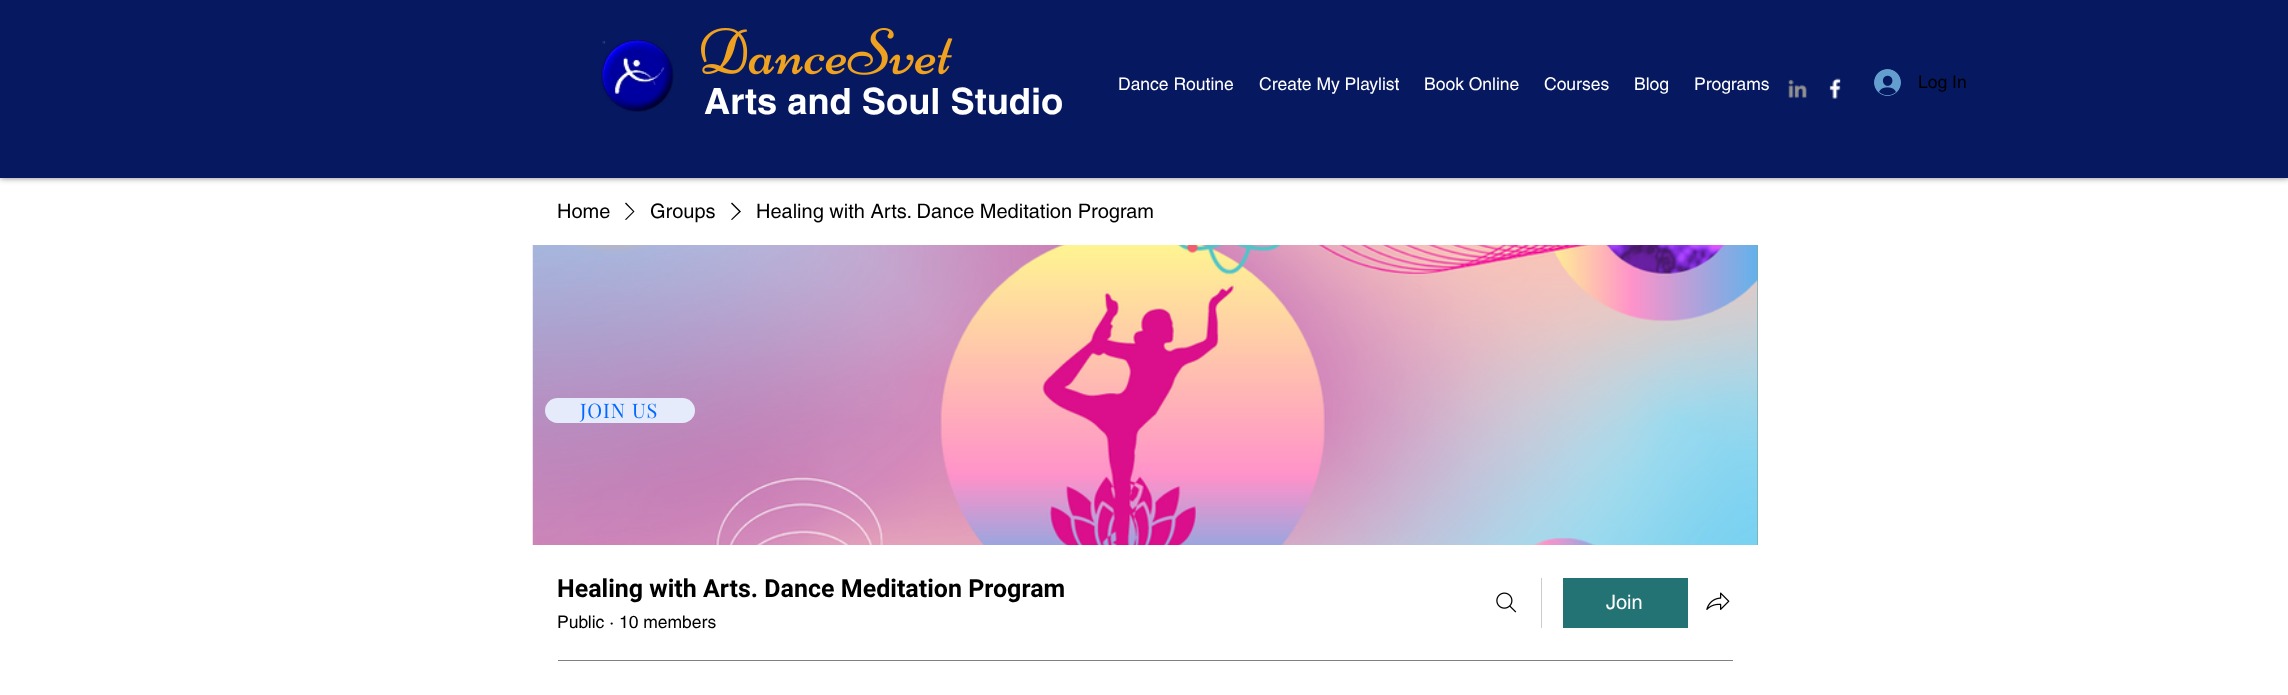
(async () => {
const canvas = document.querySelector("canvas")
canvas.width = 2288
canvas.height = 695
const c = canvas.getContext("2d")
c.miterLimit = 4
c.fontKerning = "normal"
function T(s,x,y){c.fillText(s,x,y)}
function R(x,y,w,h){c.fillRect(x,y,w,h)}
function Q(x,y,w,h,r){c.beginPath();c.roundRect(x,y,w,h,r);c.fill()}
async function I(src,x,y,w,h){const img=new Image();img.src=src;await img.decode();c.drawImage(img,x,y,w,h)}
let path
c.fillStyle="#fff"
R(0,0,2288,695)
c.fillStyle="#00000080"
c.filter="blur(3px)"
c.beginPath()
c.rect(0,0,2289,178)
c.fill()
c.filter="none"
c.fillStyle="#061860"
R(0,0,2288,178)
await I("1.png",601,40,73,72)
await I("2.png",701,28,252,47)
c.font="17.5px helvetica"
c.fillStyle="#fff"
T("Dance Routine",1118,90)
T("Create My Playlist",1259,90)
T("Book Online",1424,90)
T("Courses",1544,90)
T("Blog",1634,90)
T("Programs",1694,90)
await I("3.png",1788,79,19,19)
await I("4.png",1829,78,12,21)
await I("5.png",1874,69,27,27)
c.fillStyle="#000"
T("Log In",1918,88)
c.font="bold 36.25px helvetica"
c.fillStyle="#fff"
T("Arts and Soul Studio",704,114)
c.font="20px helvetica"
c.fillStyle="#000"
T("Home",557,218)
path = new Path2D("M626 202.5l8.5 9l-8.5 8.5l-1-.5l8-8l-8-8z")
c.fill(path,"evenodd")
T("Groups",650,218)
path = new Path2D("M732 202.5l9 9l-9 8.5l-1-.5l8-8l-8-8z")
c.fill(path,"evenodd")
T("Healing with Arts. Dance Meditation Program",756,218)
c.fillStyle="#7babac"
R(1757,245,1,300)
await I("6.png",532,245,1226,300)
c.font="bold 25px Roboto"
c.fillStyle="#000"
T("Healing with Arts. Dance Meditation Program",557,597)
c.font="17.5px helvetica"
T("Public · 10 members",557,628)
await I("7.png",1496,592,21,21)
c.fillStyle="#ccc"
R(1541,578,1,50)
c.fillStyle="#237374"
R(1563,578,125,50)
c.font="20px helvetica"
c.fillStyle="#fff"
T("Join",1606,609)
await I("8.png",1706,592,24,18)
c.fillStyle="#808080"
R(558,660,1175,1)
c.fillStyle="#e5ebfa"
Q(545,398,150,25,12.5)
c.letterSpacing="1px"
c.font="20px Playfair Display"
c.fillStyle="#0069ff"
T("JOIN US",580,418)
})()
